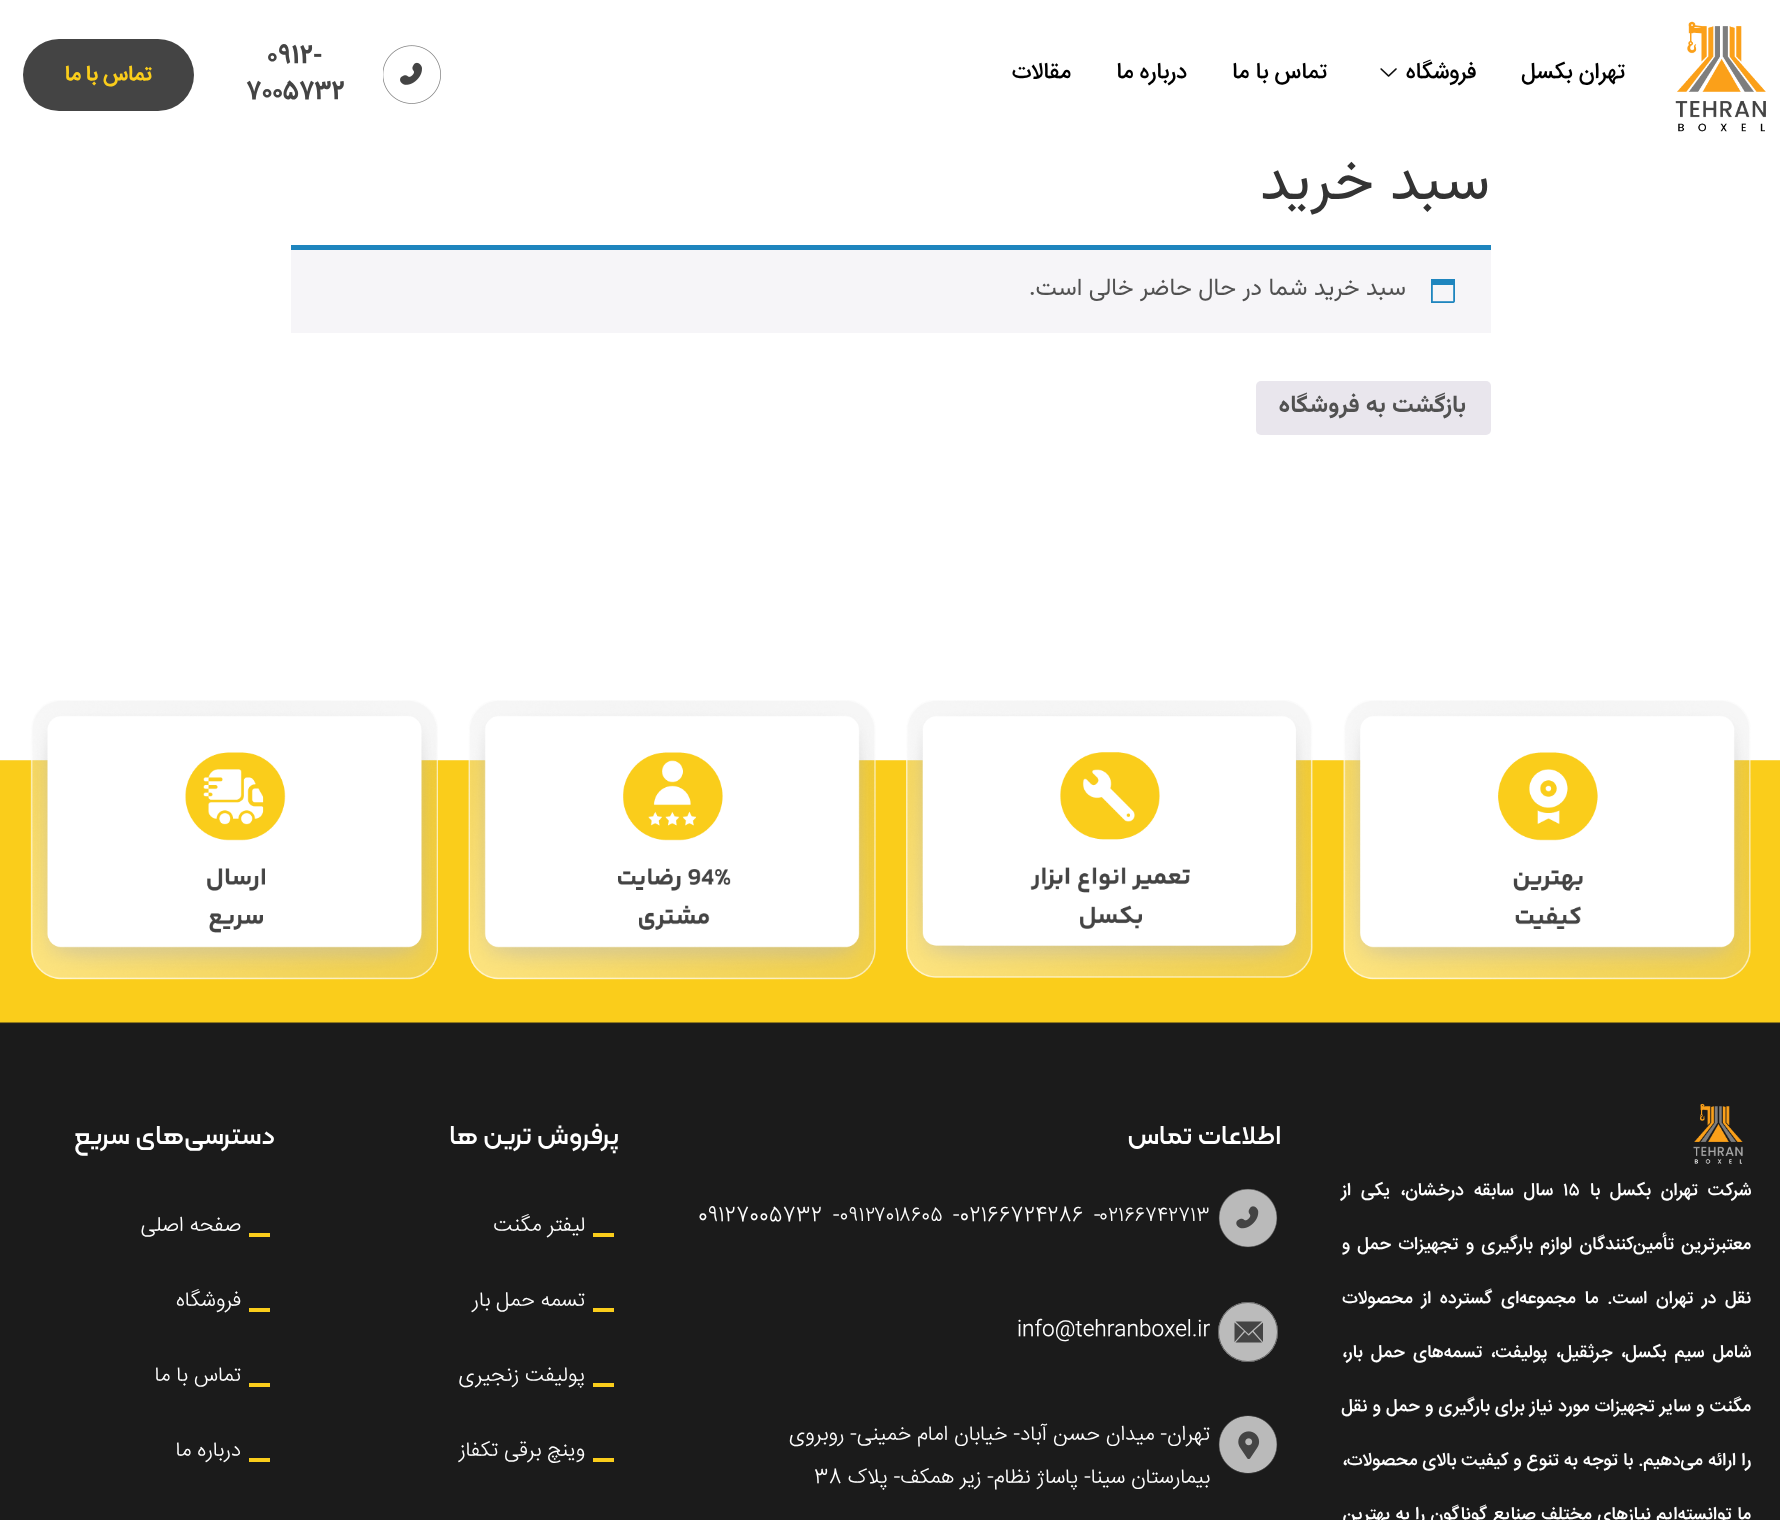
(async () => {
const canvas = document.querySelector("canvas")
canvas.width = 1780
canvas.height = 1520
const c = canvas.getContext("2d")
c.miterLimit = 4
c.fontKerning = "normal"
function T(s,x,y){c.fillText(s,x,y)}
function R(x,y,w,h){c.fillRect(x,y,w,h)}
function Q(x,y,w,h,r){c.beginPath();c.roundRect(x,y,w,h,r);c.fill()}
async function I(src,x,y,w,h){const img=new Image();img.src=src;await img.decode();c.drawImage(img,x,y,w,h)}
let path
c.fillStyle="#fff"
R(0,0,1780,1520)
await I("1.png",1675,21,91,111)
c.direction="rtl"
c.font="500 22.5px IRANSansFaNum"
c.fillStyle="#000"
T("تهران بکسل",1625,78)
T("فروشگاه",1476,78)
await I("2.png",1380,68,17,9)
T("تماس با ما",1327,78)
T("درباره ما",1187,78)
T("مقالات",1071,78)
await I("3.png",383,45,58,59)
c.direction="ltr"
c.font="bold 24px IRANSansFaNum"
c.fillStyle="#444"
T("0912-",267,62)
T("7005732",246,98)
Q(23,39,171,72,36)
c.direction="rtl"
c.font="bold 21px IRANSansFaNum"
c.fillStyle="#facd1b"
T("تماس با ما",152,80)
c.font="60px Vazirmatn"
c.fillStyle="#333"
T("سبد خرید",1490,199)
c.fillStyle="#f6f5f8"
R(291,250,1200,83)
c.fillStyle="#1e85be"
R(291,245,1200,5)
await I("4.png",1431,279,24,24)
c.font="24px Vazirmatn"
c.fillStyle="#515151"
T("سبد خرید شما در حال حاضر خالی است.",1406,295)
c.fillStyle="#e9e6ed"
Q(1256,381,235,54,5)
c.font="bold 24px Vazirmatn"
c.fillStyle="#515151"
T("بازگشت به فروشگاه",1466,412)
await I("5.png",0,760,1780,760)
await I("6.png",1343,700,408,280)
await I("7.png",906,700,407,278)
await I("8.png",468,700,408,280)
await I("9.png",30,700,408,280)
await I("10.png",1693,1103,50,61)
c.wordSpacing="5px"
c.font="500 18px IRANSansFaNum"
c.fillStyle="#fff"
T("شرکت تهران بکسل با",1751,1195)
c.wordSpacing="0px"
c.direction="ltr"
T("۱۵",1563,1195)
c.wordSpacing="5px"
c.direction="rtl"
T("سال سابقه درخشان، یکی از",1553,1195)
c.wordSpacing="2.5px"
T("معتبرترین تأمین‌کنندگان لوازم بارگیری و تجهیزات حمل و",1751,1249)
c.wordSpacing="3.75px"
T("نقل در تهران است. ما مجموعه‌ای گسترده از محصولات",1751,1303)
c.wordSpacing="3.5px"
T("شامل سیم بکسل، جرثقیل، پولیفت، تسمه‌های حمل بار،",1751,1357)
c.wordSpacing="0.25px"
T("مگنت و سایر تجهیزات مورد نیاز برای بارگیری و حمل و نقل",1751,1411)
c.wordSpacing="0.1px"
T("را ارائه می‌دهیم. با توجه به تنوع و کیفیت بالای محصولات،",1751,1465)
c.wordSpacing="0.75px"
T("ما توانسته‌ایم نیازهای مختلف صنایع گوناگون را به بهترین",1751,1519)
c.wordSpacing="0px"
c.font="500 27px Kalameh"
T("اطلاعات تماس",1281,1144)
await I("11.png",1218,1188,60,60)
c.direction="ltr"
c.font="300 21px IRANSansFaNum"
T("-۰۲۱۶۶۷۴۲۷۱۳",1094,1221)
T("-02166724286",953,1221)
T("-۰۹۱۲۷۰۱۸۶۰۵",833,1221)
T("09127005732",698,1221)
c.fillStyle="#bbb"
c.beginPath()
c.arc(1248,1332,30,0,7)
c.fill()
c.beginPath()
c.arc(1248,1332,29.5,0,7)
c.strokeStyle="#444444b3"
c.stroke()
c.fillStyle="#444"
path = new Path2D("M1244 1331l-9.5 11v-19.5zm18-9.5h-26.5l13 12.5zm-13 14c-.5 .5-3.5-3-4-3.5l-9.5 10.5h26.5l-9.5-10.5zm4.5-4.5l9.5 11v-19.5z")
c.fill(path)
c.fillStyle="#fff"
T("info@tehranboxel.ir",1017,1335)
await I("12.png",1218,1415,60,59)
c.direction="rtl"
T("تهران- میدان حسن آباد- خیابان امام خمینی- روبروی",1210,1440)
T("بیمارستان سینا- پاساژ نظام- زیر همکف- پلاک",1210,1483)
c.direction="ltr"
T("38",814,1483)
c.direction="rtl"
c.font="500 27px Kalameh"
T("پرفروش ترین ها",619,1144)
c.fillStyle="#facd1b"
R(593,1233,21,4)
c.font="300 21px IRANSansFaNum"
c.fillStyle="#fff"
T("لیفتر مگنت",585,1231)
c.fillStyle="#facd1b"
R(593,1308,21,4)
c.fillStyle="#fff"
T("تسمه حمل بار",585,1306)
c.fillStyle="#facd1b"
R(593,1383,21,4)
c.fillStyle="#fff"
T("پولیفت زنجیری",585,1381)
c.fillStyle="#facd1b"
R(593,1458,21,4)
c.fillStyle="#fff"
T("وینچ برقی تکفاز",585,1456)
c.font="500 27px Kalameh"
T("دسترسی‌های سریع",275,1144)
c.fillStyle="#facd1b"
R(249,1233,21,4)
c.font="300 21px IRANSansFaNum"
c.fillStyle="#fff"
T("صفحه اصلی",241,1231)
c.fillStyle="#facd1b"
R(249,1308,21,4)
c.fillStyle="#fff"
T("فروشگاه",241,1306)
c.fillStyle="#facd1b"
R(249,1383,21,4)
c.fillStyle="#fff"
T("تماس با ما",241,1381)
c.fillStyle="#facd1b"
R(249,1458,21,4)
c.fillStyle="#fff"
T("درباره ما",241,1456)
})()
